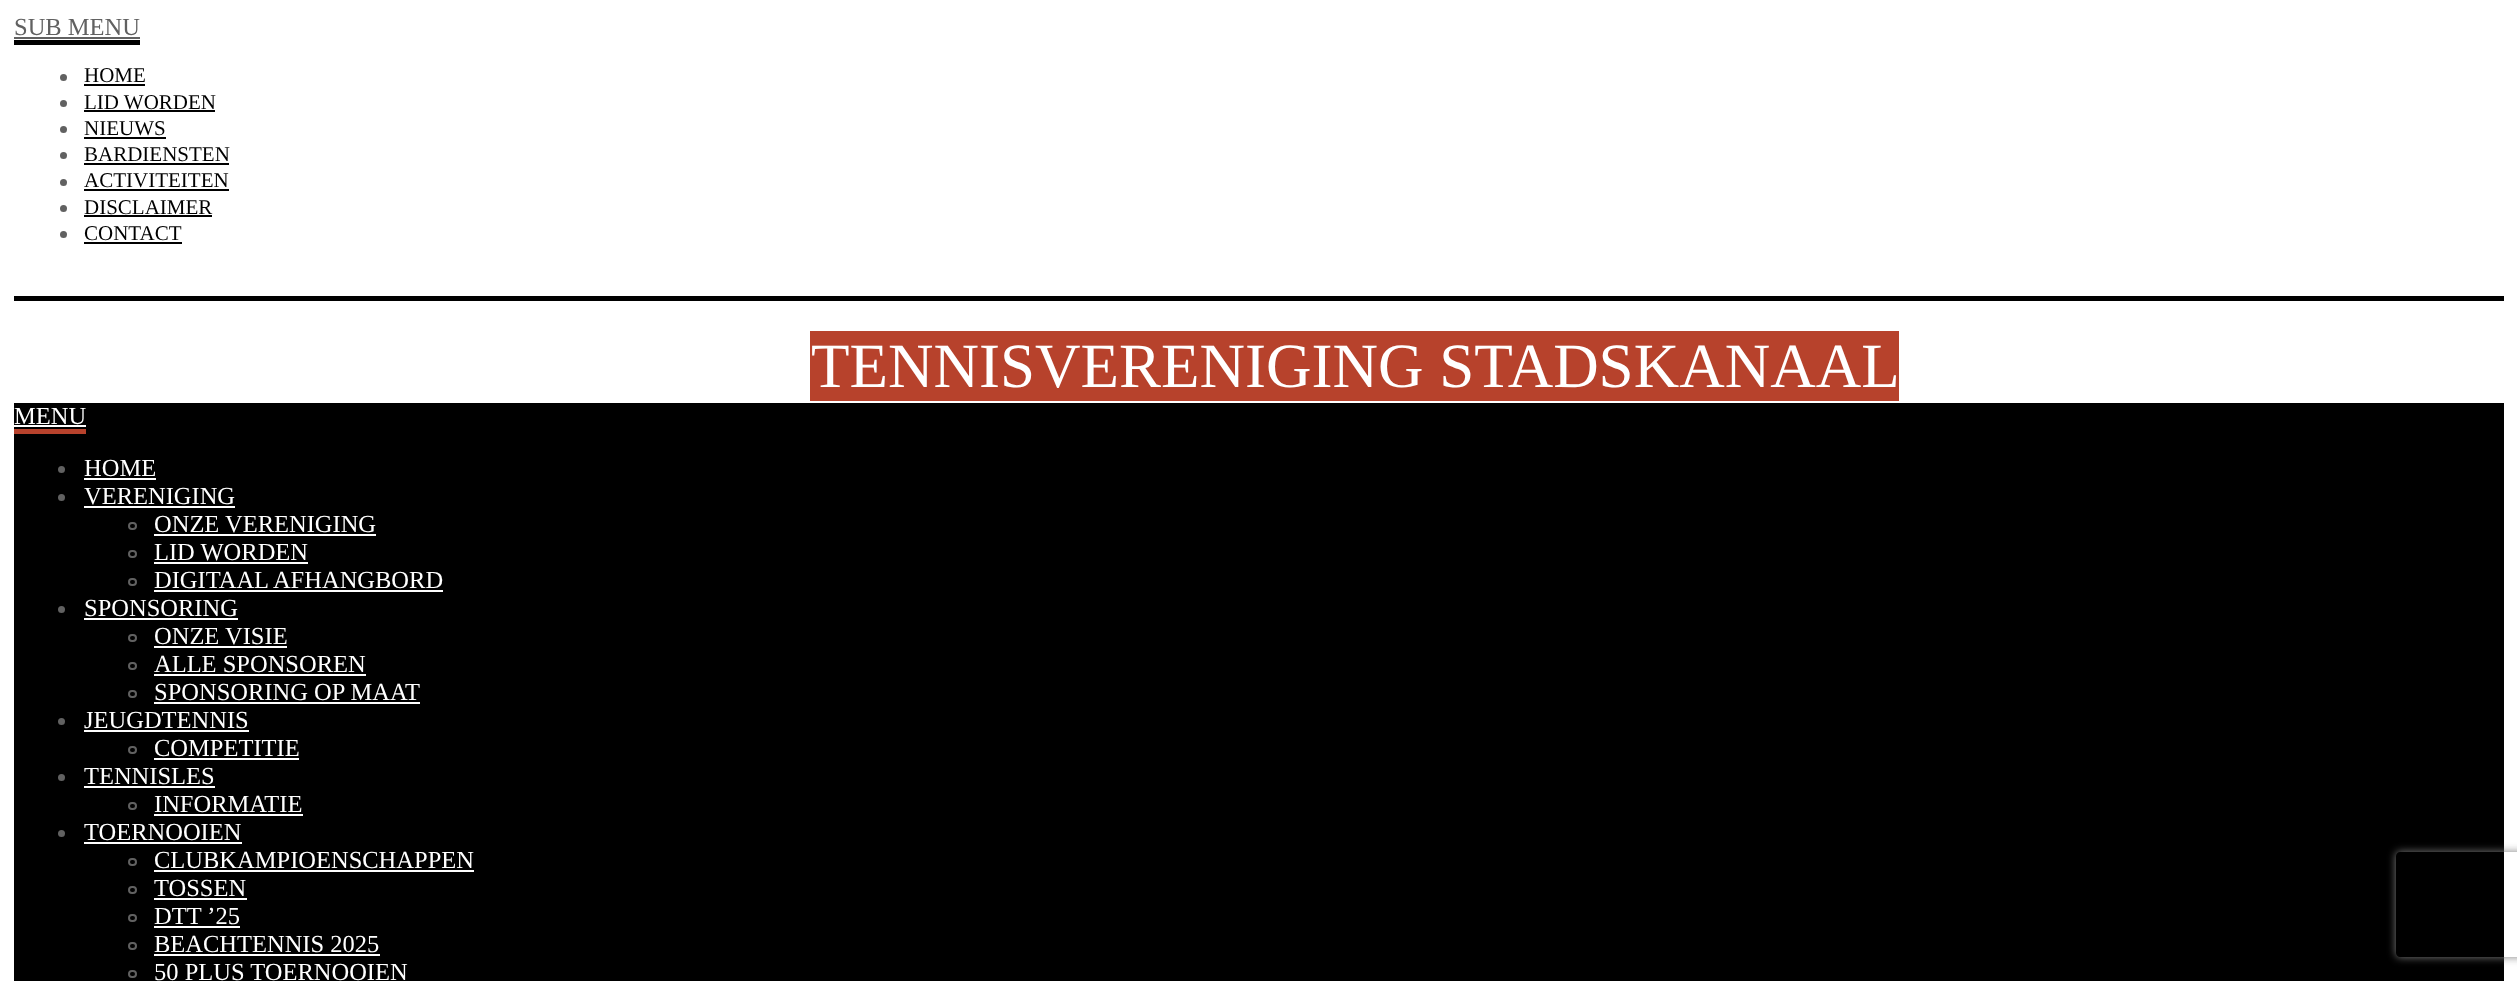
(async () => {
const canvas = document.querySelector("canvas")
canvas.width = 2517
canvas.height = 981
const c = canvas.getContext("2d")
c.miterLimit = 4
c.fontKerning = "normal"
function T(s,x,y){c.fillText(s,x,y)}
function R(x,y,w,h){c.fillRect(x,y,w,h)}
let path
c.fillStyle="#fff"
R(0,0,2517,981)
c.font="24.5px Liberation Serif"
c.fillStyle="#616161"
T("SUB MENU",14,35)
c.fillStyle="#000"
R(14,40,126,5)
c.fillStyle="#616161"
R(14,37,126,2)
c.fillStyle="#000"
R(14,296,2490,5)
c.fillStyle="#616161"
c.beginPath()
c.arc(63.5,77.5,3.5,0,7)
c.fill()
c.font="21px Liberation Serif"
c.fillStyle="#000"
T("HOME",84,82)
R(84,84,61,2)
c.fillStyle="#616161"
c.beginPath()
c.arc(63.5,103.5,3.5,0,7)
c.fill()
c.fillStyle="#000"
T("LID WORDEN",84,109)
R(84,110,131,2)
c.fillStyle="#616161"
c.beginPath()
c.arc(63.5,129.5,3.5,0,7)
c.fill()
c.fillStyle="#000"
T("NIEUWS",84,135)
R(84,137,82,2)
c.fillStyle="#616161"
c.beginPath()
c.arc(63.5,155.5,3.5,0,7)
c.fill()
c.fillStyle="#000"
T("BARDIENSTEN",84,161)
R(84,163,145,2)
c.fillStyle="#616161"
c.beginPath()
c.arc(63.5,182.5,3.5,0,7)
c.fill()
c.fillStyle="#000"
T("ACTIVITEITEN",84,187)
R(84,189,145,2)
c.fillStyle="#616161"
c.beginPath()
c.arc(63.5,208.5,3.5,0,7)
c.fill()
c.fillStyle="#000"
T("DISCLAIMER",84,214)
R(84,215,128,2)
c.fillStyle="#616161"
c.beginPath()
c.arc(63.5,234.5,3.5,0,7)
c.fill()
c.fillStyle="#000"
T("CONTACT",84,240)
R(84,242,98,2)
c.fillStyle="#b7422c"
R(810,331,1089,70)
c.font="63px Liberation Serif"
c.fillStyle="#fff"
T("TENNISVERENIGING STADSKANAAL",811,387)
c.fillStyle="#000"
R(14,403,2490,578)
c.font="24.5px Liberation Serif"
c.fillStyle="#fff"
T("MENU",14,424)
c.fillStyle="#b7422c"
R(14,429,72,5)
c.fillStyle="#fff"
R(14,425,72,2)
c.fillStyle="#616161"
c.beginPath()
c.arc(61.5,469.5,3.5,0,7)
c.fill()
c.fillStyle="#fff"
T("HOME",84,476)
R(84,478,72,2)
c.fillStyle="#616161"
c.beginPath()
c.arc(61.5,497.5,3.5,0,7)
c.fill()
c.fillStyle="#fff"
T("VERENIGING",84,504)
R(84,506,151,2)
c.beginPath()
c.roundRect(129,523,7,6,3)
c.strokeStyle="#616161"
c.lineWidth=2
c.stroke()
T("ONZE VERENIGING",154,532)
R(154,534,222,2)
c.beginPath()
c.roundRect(129,551,7,6,3)
c.stroke()
T("LID WORDEN",154,560)
R(154,562,154,2)
c.beginPath()
c.roundRect(129,579,7,6,3)
c.stroke()
T("DIGITAAL AFHANGBORD",154,588)
R(154,590,289,2)
c.fillStyle="#616161"
c.beginPath()
c.arc(61.5,609.5,3.5,0,7)
c.fill()
c.fillStyle="#fff"
T("SPONSORING",84,616)
R(84,618,154,2)
c.beginPath()
c.roundRect(129,635,7,6,3)
c.stroke()
T("ONZE VISIE",154,644)
R(154,646,133,2)
c.beginPath()
c.roundRect(129,663,7,6,3)
c.stroke()
T("ALLE SPONSOREN",154,672)
R(154,674,212,2)
c.beginPath()
c.roundRect(129,691,7,6,3)
c.stroke()
T("SPONSORING OP MAAT",154,700)
R(154,702,266,2)
c.fillStyle="#616161"
c.beginPath()
c.arc(61.5,721.5,3.5,0,7)
c.fill()
c.fillStyle="#fff"
T("JEUGDTENNIS",84,728)
R(84,730,165,2)
c.beginPath()
c.roundRect(129,747,7,6,3)
c.stroke()
T("COMPETITIE",154,756)
R(154,758,145,2)
c.fillStyle="#616161"
c.beginPath()
c.arc(61.5,777.5,3.5,0,7)
c.fill()
c.fillStyle="#fff"
T("TENNISLES",84,784)
R(84,786,131,2)
c.beginPath()
c.roundRect(129,803,7,6,3)
c.stroke()
T("INFORMATIE",154,812)
R(154,814,149,2)
c.fillStyle="#616161"
c.beginPath()
c.arc(61.5,833.5,3.5,0,7)
c.fill()
c.fillStyle="#fff"
T("TOERNOOIEN",84,840)
R(84,842,158,2)
c.beginPath()
c.roundRect(129,859,7,6,3)
c.stroke()
T("CLUBKAMPIOENSCHAPPEN",154,868)
R(154,870,320,2)
c.beginPath()
c.roundRect(129,887,7,6,3)
c.stroke()
T("TOSSEN",154,896)
R(154,898,93,2)
c.beginPath()
c.roundRect(129,915,7,6,3)
c.stroke()
T("DTT ’25",154,924)
R(154,926,86,2)
c.beginPath()
c.roundRect(129,943,7,6,3)
c.stroke()
T("BEACHTENNIS 2025",154,952)
R(154,954,226,2)
c.beginPath()
c.roundRect(129,971,7,6,3)
c.stroke()
T("50 PLUS TOERNOOIEN",154,980)
c.save()
path = new Path2D("M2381 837h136v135h-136zm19 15h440c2 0 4 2 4 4v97c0 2-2 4-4 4h-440c-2 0-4-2-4-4v-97c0-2 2-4 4-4z")
c.clip(path,"evenodd")
c.fillStyle="#808080"
c.filter="blur(4.5px)"
c.beginPath()
c.roundRect(2396,852,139,105,4)
c.fill()
c.filter="none"
c.restore()
})()
